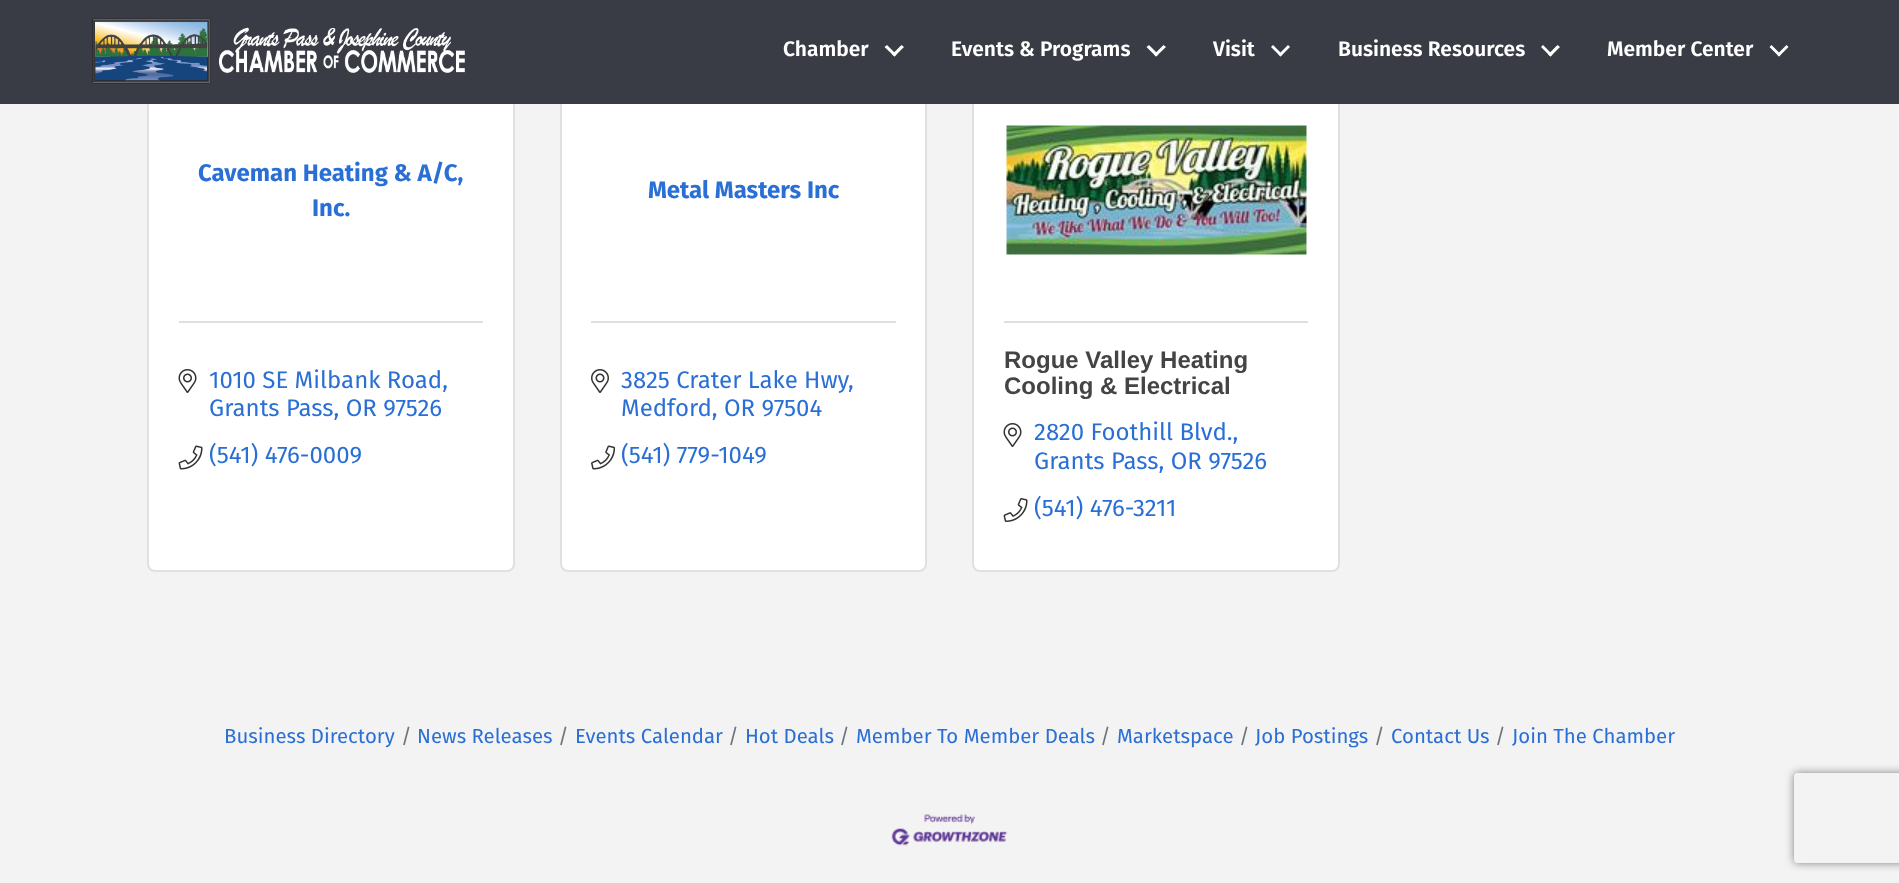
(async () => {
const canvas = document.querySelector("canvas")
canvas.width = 1899
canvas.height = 883
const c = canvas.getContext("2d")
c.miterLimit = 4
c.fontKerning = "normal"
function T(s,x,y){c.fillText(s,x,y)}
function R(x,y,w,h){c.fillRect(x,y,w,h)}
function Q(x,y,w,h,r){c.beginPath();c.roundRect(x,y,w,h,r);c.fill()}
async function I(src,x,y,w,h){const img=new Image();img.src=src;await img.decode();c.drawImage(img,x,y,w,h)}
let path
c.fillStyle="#f3f3f3"
R(0,0,1899,883)
c.fillStyle="#fff"
Q(147,57,368,515,8)
c.beginPath()
c.roundRect(148,58,366,513,7)
c.strokeStyle="#0000001f"
c.lineWidth=2
c.stroke()
Q(560,57,367,515,8)
c.beginPath()
c.roundRect(561,58,365,513,7)
c.stroke()
Q(972,57,368,515,8)
c.beginPath()
c.roundRect(973,58,366,513,7)
c.stroke()
c.fillStyle="#393b45"
R(0,0,1899,104)
await I("1.png",92,18,373,66)
c.font="600 21px Fira Sans"
c.fillStyle="#fff"
T("Chamber",783,56)
path = new Path2D("M901.5 45l2.5 2l-9.5 9.5l-2.5-2z")
c.fill(path)
path = new Path2D("M887 45l9.5 9.5l-2 2l-10-9.5z")
c.fill(path)
T("Events & Programs",951,56)
path = new Path2D("M1163.5 45l2.5 2l-10 9.5l-2-2z")
c.fill(path)
path = new Path2D("M1149 45l9.5 9.5l-2.5 2l-9.5-9.5z")
c.fill(path)
T("Visit",1213,56)
path = new Path2D("M1288 45l2 2l-9.5 9.5l-2-2z")
c.fill(path)
path = new Path2D("M1273 45l9.5 9.5l-2 2l-9.5-9.5z")
c.fill(path)
T("Business Resources",1338,56)
path = new Path2D("M1557.5 45l2.5 2l-9.5 9.5l-2.5-2z")
c.fill(path)
path = new Path2D("M1543 45l9.5 9.5l-2 2l-9.5-9.5z")
c.fill(path)
T("Member Center",1607,56)
path = new Path2D("M1786.5 45l2 2l-9.5 9.5l-2-2z")
c.fill(path)
path = new Path2D("M1771.5 45l9.5 9.5l-2 2l-9.5-9.5z")
c.fill(path)
c.font="bold 24px Fira Sans"
c.fillStyle="#2a6fd5"
T("Caveman Heating & A/C,",198,181)
T("Inc.",312,216)
c.fillStyle="#dfdfdf"
R(179,321,304,2)
await I("2.png",178,369,19,24)
c.font="24px Fira Sans"
c.fillStyle="#2a6fd5"
T("1010 SE Milbank Road,",209,388)
T("Grants Pass, OR 97526",209,416)
await I("3.png",178,445,25,25)
T("(541) 476-0009",209,463)
c.font="bold 24px Fira Sans"
T("Metal Masters Inc",648,198)
c.fillStyle="#dfdfdf"
R(591,321,305,2)
await I("4.png",591,369,18,24)
c.font="24px Fira Sans"
c.fillStyle="#2a6fd5"
T("3825 Crater Lake Hwy",621,388)
T(",",848,388)
T("Medford, OR 97504",621,416)
await I("5.png",591,445,25,25)
T("(541) 779-1049",621,463)
await I("6.png",1006,125,301,130)
c.fillStyle="#dfdfdf"
R(1004,321,304,2)
c.font="bold 24px Liberation Sans"
c.fillStyle="#444"
T("Rogue Valley Heating",1004,368)
T("Cooling & Electrical",1004,394)
await I("2.png",1003,423,19,24)
c.font="24px Fira Sans"
c.fillStyle="#2a6fd5"
T("2820 Foothill Blvd.,",1034,440)
T("Grants Pass, OR 97526",1034,469)
await I("7.png",1003,498,25,24)
T("(541) 476-3211",1034,516)
c.font="20.4px Fira Sans"
T("Business Directory",224,743)
c.fillStyle="#6c757d"
T("/",401,743)
c.fillStyle="#2a6fd5"
T("News Releases",417,743)
c.fillStyle="#6c757d"
T("/",558,743)
c.fillStyle="#2a6fd5"
T("Events Calendar",575,743)
c.fillStyle="#6c757d"
T("/",728,743)
c.fillStyle="#2a6fd5"
T("Hot Deals",745,743)
c.fillStyle="#6c757d"
T("/",839,743)
c.fillStyle="#2a6fd5"
T("Member To Member Deals",856,743)
c.fillStyle="#6c757d"
T("/",1100,743)
c.fillStyle="#2a6fd5"
T("Marketspace",1117,743)
c.fillStyle="#6c757d"
T("/",1239,743)
c.fillStyle="#2a6fd5"
T("Job Postings",1255,743)
c.fillStyle="#6c757d"
T("/",1374,743)
c.fillStyle="#2a6fd5"
T("Contact Us",1391,743)
c.fillStyle="#6c757d"
T("/",1495,743)
c.fillStyle="#2a6fd5"
T("Join The Chamber",1512,743)
await I("8.png",891,814,117,32)
c.save()
path = new Path2D("M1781 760h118v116h-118zm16 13h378c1.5 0 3 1.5 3 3v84c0 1.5-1.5 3-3 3h-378c-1.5 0-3-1.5-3-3v-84c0-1.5 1.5-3 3-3z")
c.clip(path,"evenodd")
c.fillStyle="#808080"
c.filter="blur(4px)"
c.beginPath()
c.roundRect(1794,773,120,90,3)
c.fill()
c.filter="none"
c.restore()
})()
